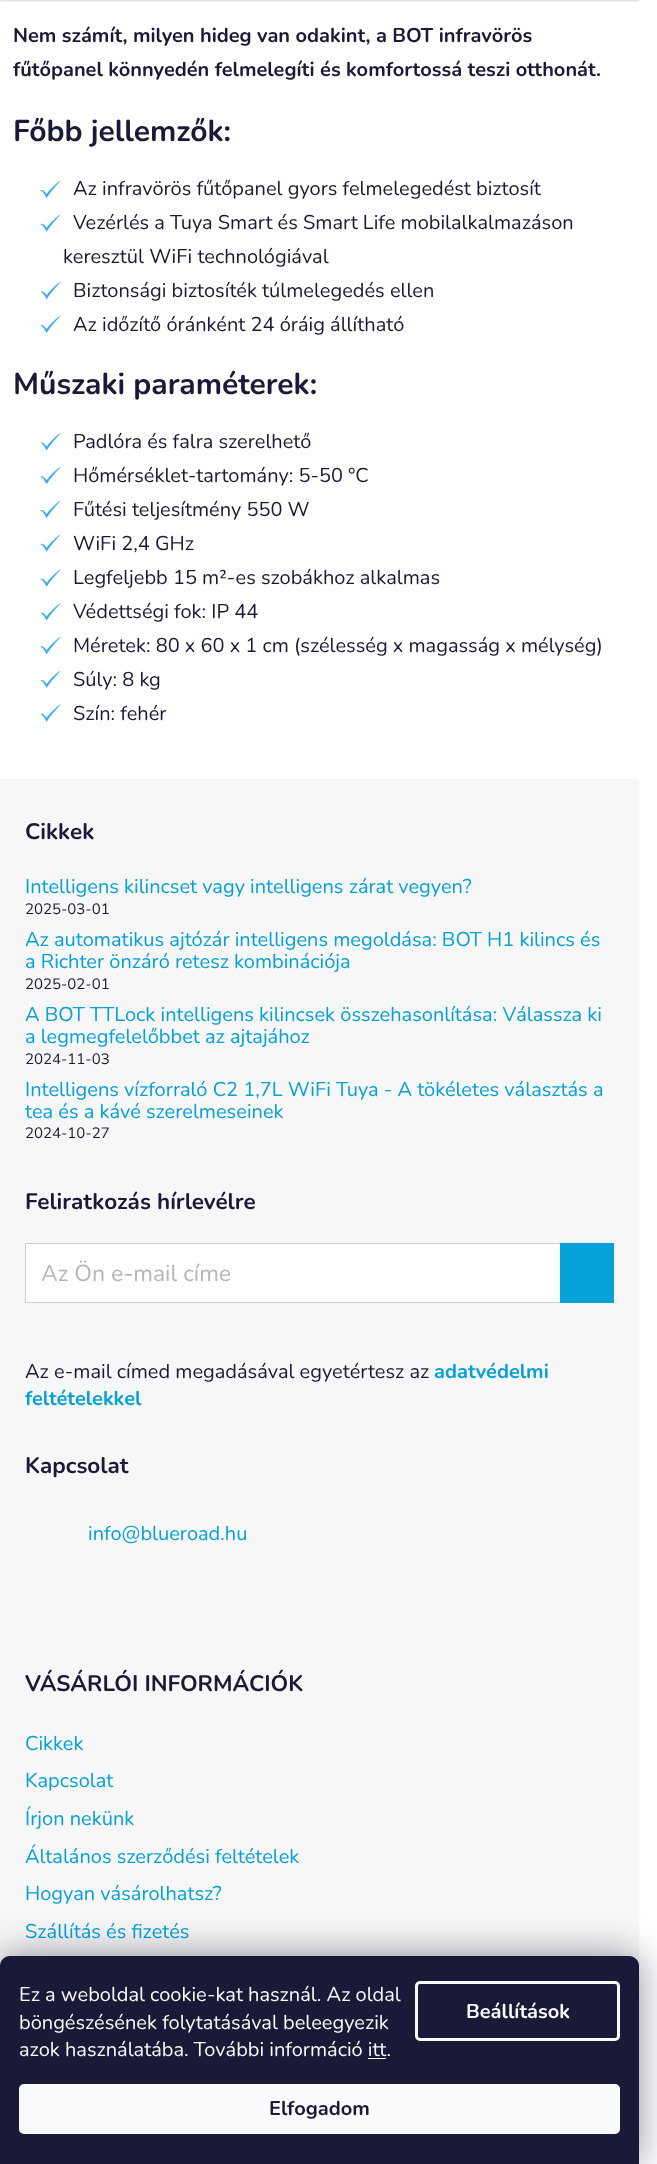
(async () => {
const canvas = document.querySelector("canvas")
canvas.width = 657
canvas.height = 2164
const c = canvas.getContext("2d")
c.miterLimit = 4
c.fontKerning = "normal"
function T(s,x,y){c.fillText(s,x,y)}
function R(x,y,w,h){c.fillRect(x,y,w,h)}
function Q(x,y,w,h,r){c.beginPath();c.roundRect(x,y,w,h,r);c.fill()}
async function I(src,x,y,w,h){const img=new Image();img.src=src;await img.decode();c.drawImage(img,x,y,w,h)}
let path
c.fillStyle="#fff"
R(0,0,657,2164)
c.fillStyle="#00000029"
c.filter="blur(1px)"
c.beginPath()
c.rect(0,-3,639,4)
c.fill()
c.filter="none"
c.font="bold 20px Nunito"
c.fillStyle="#1a1937"
T("Nem számít, milyen hideg van odakint, a BOT infravörös",13,42)
T("fűtőpanel könnyedén felmelegíti és komfortossá teszi otthonát.",13,76)
c.font="bold 30px Nunito"
T("Főbb jellemzők:",13,141)
await I("1.png",40,180,21,18)
c.font="20px Nunito"
T("Az infravörös fűtőpanel gyors felmelegedést biztosít",73,195)
await I("2.png",40,214,21,18)
T("Vezérlés a Tuya Smart és Smart Life mobilalkalmazáson",73,229)
T("keresztül WiFi technológiával",63,263)
await I("3.png",40,282,21,17)
T("Biztonsági biztosíték túlmelegedés ellen",73,297)
await I("1.png",40,315,21,18)
T("Az időzítő óránként 24 óráig állítható",73,331)
c.font="bold 30px Nunito"
T("Műszaki paraméterek:",13,394)
await I("4.png",40,433,21,18)
c.font="20px Nunito"
T("Padlóra és falra szerelhető",73,448)
await I("3.png",40,467,21,17)
T("Hőmérséklet-tartomány: 5-50 °C",73,482)
await I("1.png",40,500,21,18)
T("Fűtési teljesítmény 550 W",73,516)
await I("2.png",40,534,21,18)
T("WiFi 2,4 GHz",73,550)
await I("2.png",40,569,21,18)
T("Legfeljebb 15 m²-es szobákhoz alkalmas",73,584)
await I("4.png",40,603,21,18)
T("Védettségi fok: IP 44",73,618)
await I("3.png",40,637,21,17)
T("Méretek: 80 x 60 x 1 cm (szélesség x magasság x mélység)",73,652)
await I("1.png",40,670,21,18)
T("Súly: 8 kg",73,686)
await I("2.png",40,704,21,18)
T("Szín: fehér",73,720)
c.fillStyle="#f7f7f7"
R(0,779,639,1187)
c.font="bold 22.5px Nunito"
c.fillStyle="#1a1937"
T("Cikkek",25,839)
c.font="20px Nunito"
c.fillStyle="#05a1d8"
T("Intelligens kilincset vagy intelligens zárat vegyen?",25,893)
c.font="15px Nunito"
c.fillStyle="#1a1937"
T("2025-03-01",25,914)
c.font="20px Nunito"
c.fillStyle="#05a1d8"
T("Az automatikus ajtózár intelligens megoldása: BOT H1 kilincs és",25,946)
T("a Richter önzáró retesz kombinációja",25,968)
c.font="15px Nunito"
c.fillStyle="#1a1937"
T("2025-02-01",25,989)
c.font="20px Nunito"
c.fillStyle="#05a1d8"
T("A BOT TTLock intelligens kilincsek összehasonlítása: Válassza ki",25,1021)
T("a legmegfelelőbbet az ajtajához",25,1043)
c.font="15px Nunito"
c.fillStyle="#1a1937"
T("2024-11-03",25,1064)
c.font="20px Nunito"
c.fillStyle="#05a1d8"
T("Intelligens vízforraló C2 1,7L WiFi Tuya - A tökéletes választás a",25,1096)
T("tea és a kávé szerelmeseinek",25,1118)
c.font="15px Nunito"
c.fillStyle="#1a1937"
T("2024-10-27",25,1138)
c.font="bold 22.5px Nunito"
T("Feliratkozás hírlevélre",25,1209)
c.fillStyle="#fff"
R(26,1244,534,58)
c.strokeStyle="#cfcfcf"
c.strokeRect(25.5,1243.5,588,59)
c.font="23px Nunito"
c.fillStyle="#b6b6b6"
T("Az Ön e-mail címe",41,1281)
c.fillStyle="#05a1d8"
R(560,1243,54,60)
c.font="20px Nunito"
c.fillStyle="#1a1937"
T("Az e-mail címed megadásával egyetértesz az",25,1378)
c.font="bold 20px Nunito"
c.fillStyle="#05a1d8"
T("adatvédelmi",434,1378)
T("feltételekkel",25,1405)
c.font="bold 22.5px Nunito"
c.fillStyle="#1a1937"
T("Kapcsolat",25,1473)
c.font="20px Nunito"
c.fillStyle="#05a1d8"
T("info@blueroad.hu",88,1540)
c.font="bold 22.5px Nunito"
c.fillStyle="#1a1937"
T("VÁSÁRLÓI INFORMÁCIÓK",25,1691)
c.font="20px Nunito"
c.fillStyle="#05a1d8"
T("Cikkek",25,1750)
T("Kapcsolat",25,1787)
T("Írjon nekünk",25,1825)
T("Általános szerződési feltételek",25,1863)
T("Hogyan vásárolhatsz?",25,1900)
T("Szállítás és fizetés",25,1938)
c.fillStyle="#1b193980"
c.filter="blur(19px)"
c.beginPath()
c.roundRect(0,1956,639,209,10)
c.fill()
c.filter="none"
c.fillStyle="#1a1937"
path = new Path2D("M10 1956h619c5.5 0 10 4.5 10 10v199h-639v-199c0-5.5 4.5-10 10-10z")
c.fill(path)
c.fillStyle="#f8fafb"
T("Ez a weboldal cookie-kat használ. Az oldal",19,2001)
T("böngészésének folytatásával beleegyezik",19,2029)
T("azok használatába. További információ itt.",19,2056)
R(368,2058,18,1)
c.beginPath()
c.roundRect(416.5,1982.5,202,57,3.5)
c.strokeStyle="#f8fafb"
c.lineWidth=3
c.stroke()
c.font="bold 20px Nunito"
T("Beállítások",466,2018)
Q(19,2084,601,50,5)
c.fillStyle="#1a1937"
T("Elfogadom",269,2115)
})()
